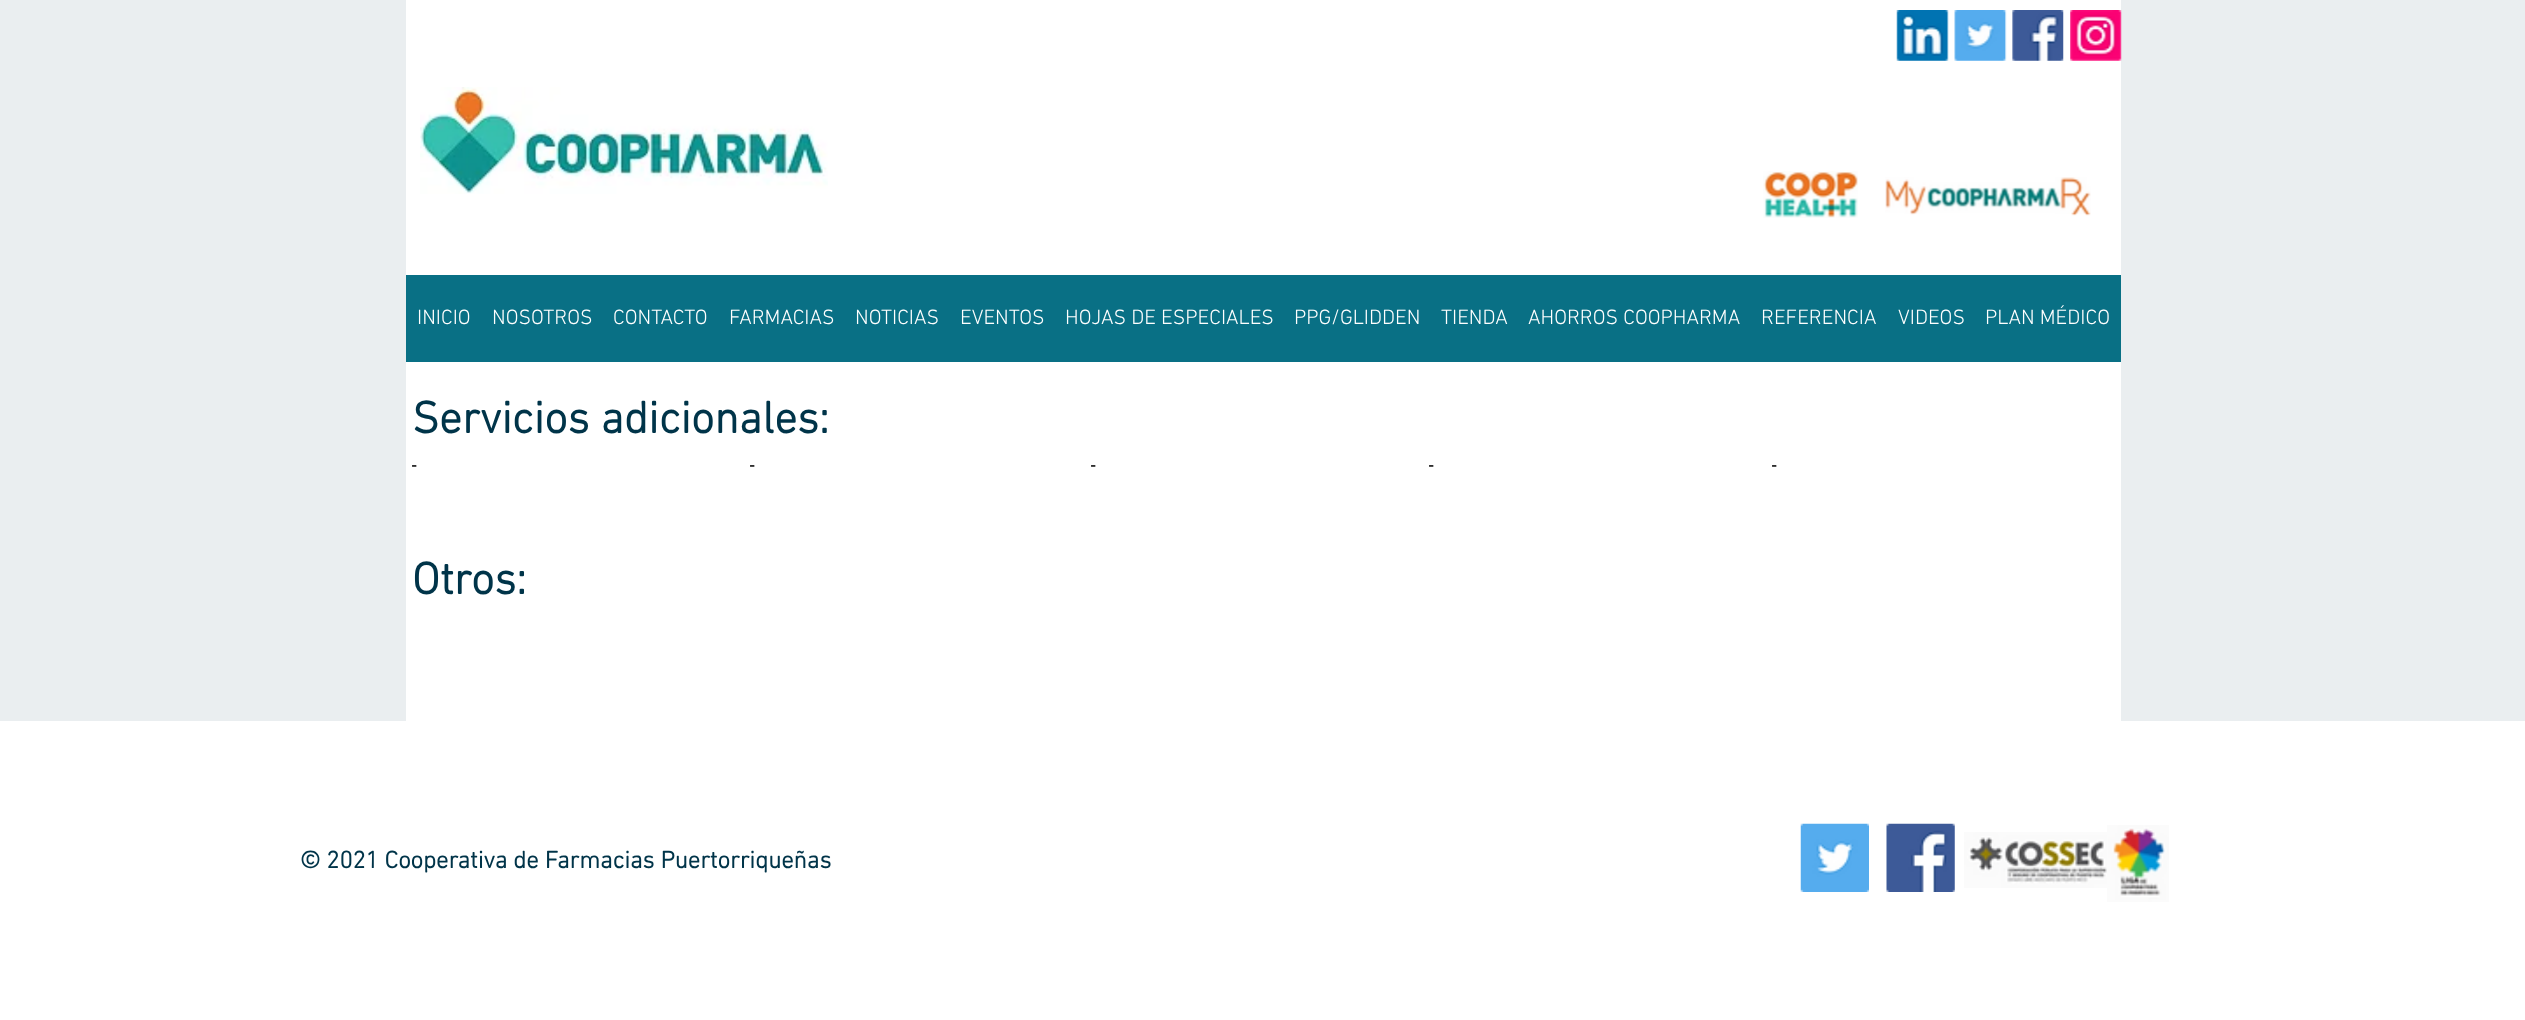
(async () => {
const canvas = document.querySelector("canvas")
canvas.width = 2525
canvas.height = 1020
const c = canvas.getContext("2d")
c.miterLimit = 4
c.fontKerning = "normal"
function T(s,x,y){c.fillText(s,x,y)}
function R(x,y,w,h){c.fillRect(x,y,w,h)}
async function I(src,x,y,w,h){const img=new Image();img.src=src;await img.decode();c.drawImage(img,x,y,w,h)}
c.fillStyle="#eaeef0"
R(0,0,2525,1020)
c.fillStyle="#fff"
R(406,0,1715,275)
await I("1.png",1896,10,53,51)
await I("2.png",1954,10,53,51)
await I("3.png",2012,10,52,51)
await I("4.png",2070,10,52,51)
await I("5.png",420,87,408,107)
await I("6.png",1763,171,95,47)
await I("7.png",1885,177,206,39)
c.fillStyle="#097085"
R(406,275,1715,87)
c.font="300 21px 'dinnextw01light'"
c.fillStyle="#fff"
T("INICIO",417,324)
T("NOSOTROS",492,324)
T("CONTACTO",613,324)
T("FARMACIAS",729,324)
T("NOTICIAS",855,324)
T("EVENTOS",960,324)
T("HOJAS DE ESPECIALES",1065,324)
T("PPG/GLIDDEN",1294,324)
T("TIENDA",1441,324)
T("AHORROS COOPHARMA",1528,324)
T("REFERENCIA",1761,324)
T("VIDEOS",1898,324)
T("PLAN MÉDICO",1985,324)
R(406,362,1715,359)
c.font="bold 45.5px 'dinnextw01light'"
c.fillStyle="#003449"
T("Servicios adicionales:",412,433)
c.font="21px futura"
c.fillStyle="#000"
T("-",412,471)
T("-",750,471)
T("-",1091,471)
T("-",1429,471)
T("-",1772,471)
c.font="bold 45.5px 'dinnextw01light'"
c.fillStyle="#003449"
T("Otros:",412,594)
c.fillStyle="#fff"
R(0,721,2525,299)
c.font="bold 24.5px 'dinnextw01light'"
c.fillStyle="#003449"
T("© 2021 Cooperativa de Farmacias Puertorriqueñas",300,868)
await I("8.png",1800,823,69,69)
await I("9.png",1886,823,69,69)
await I("10.png",1964,832,143,56)
await I("11.png",2107,825,62,77)
})()
